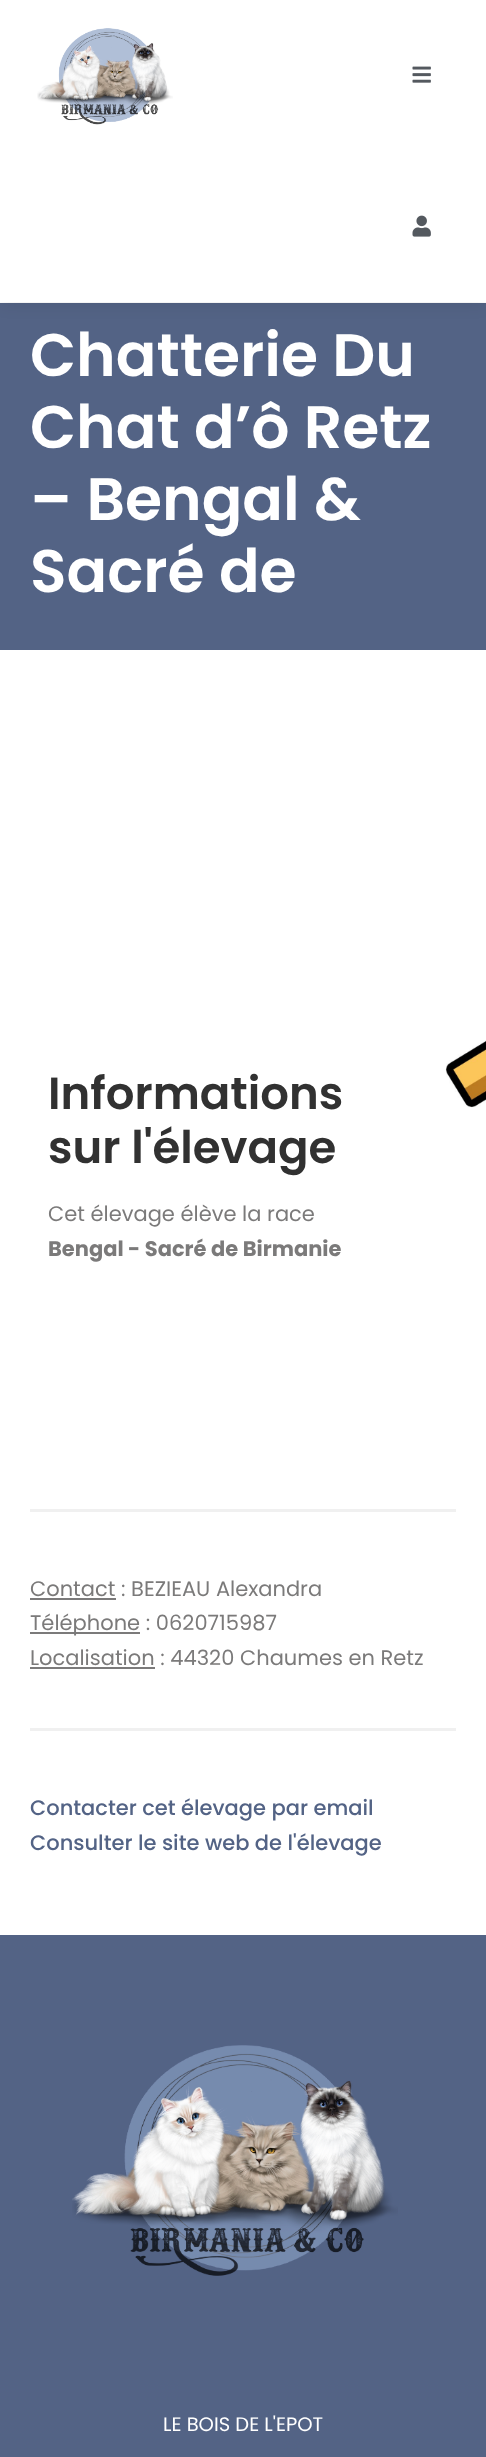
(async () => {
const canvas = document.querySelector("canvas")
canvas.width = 486
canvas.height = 2457
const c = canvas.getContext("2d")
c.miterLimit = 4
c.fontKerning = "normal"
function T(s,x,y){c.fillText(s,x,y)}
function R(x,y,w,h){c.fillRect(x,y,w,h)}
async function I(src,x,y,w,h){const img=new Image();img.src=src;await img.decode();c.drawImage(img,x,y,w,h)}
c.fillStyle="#fff"
R(0,0,486,2457)
c.fillStyle="#536385"
R(0,303,486,347)
c.fillStyle="#0000001a"
c.filter="blur(9px)"
c.beginPath()
c.rect(0,0,486,302)
c.fill()
c.filter="none"
c.fillStyle="#fff"
R(0,0,486,302)
await I("1.png",37,28,136,97)
await I("2.png",412,66,19,17)
await I("3.png",412,215,19,22)
c.font="600 60px Poppins"
T("Chatterie Du",30,376)
T("Chat d’ô Retz",30,448)
T("– Bengal &",30,520)
T("Sacré de",30,592)
c.font="600 45px Poppins"
c.fillStyle="#313131"
T("Informations",48,1109)
T("sur l'élevage",48,1163)
c.font="21px Poppins"
c.fillStyle="#7b7a7a"
T("Cet élevage élève la race",48,1221)
c.font="bold 21px Poppins"
T("Bengal - Sacré de Birmanie",48,1256)
await I("4.png",445,1040,41,68)
c.fillStyle="#f0f0f0"
R(30,1509,426,3)
c.font="21px Poppins"
c.fillStyle="#7b7a7a"
T("Contact : BEZIEAU Alexandra",30,1596)
R(30,1598,86,2)
R(30,1632,110,2)
T("Téléphone : 0620715987",30,1630)
T("Localisation : 44320 Chaumes en Retz",30,1665)
R(30,1667,125,2)
c.fillStyle="#f0f0f0"
R(30,1728,426,3)
c.font="500 21px Poppins"
c.fillStyle="#536385"
T("Contacter cet élevage par email",30,1815)
T("Consulter le site web de l'élevage",30,1850)
R(0,1935,486,522)
await I("5.png",72,2045,326,231)
c.font="19.5px Poppins"
c.fillStyle="#fff"
T("LE BOIS DE L'EPOT",163,2431)
})()
